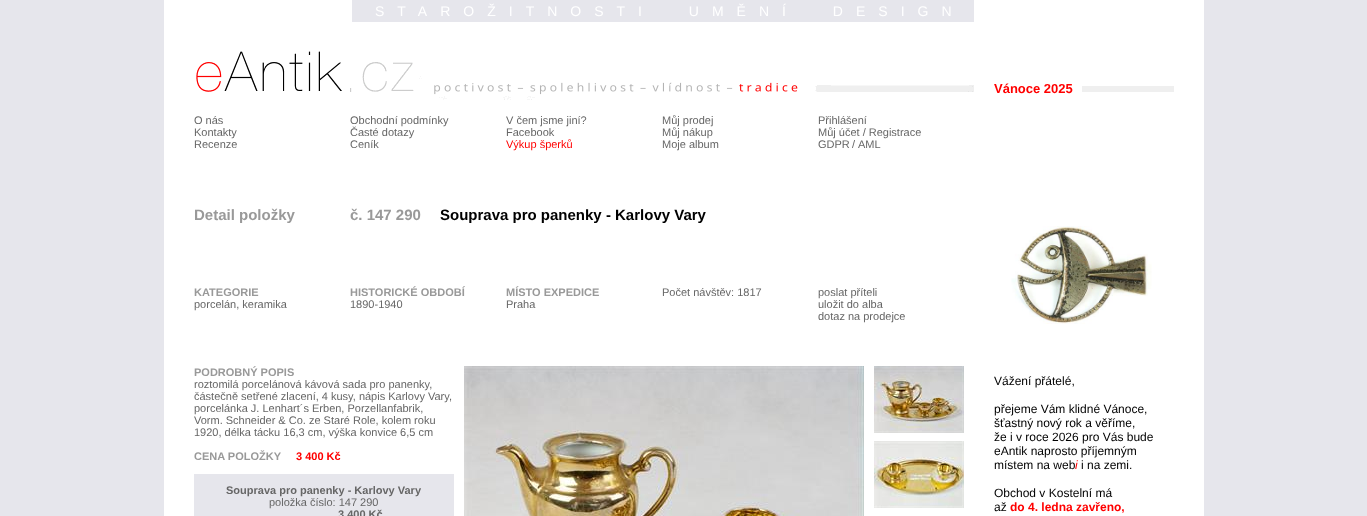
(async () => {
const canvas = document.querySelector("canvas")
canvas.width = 1367
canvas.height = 516
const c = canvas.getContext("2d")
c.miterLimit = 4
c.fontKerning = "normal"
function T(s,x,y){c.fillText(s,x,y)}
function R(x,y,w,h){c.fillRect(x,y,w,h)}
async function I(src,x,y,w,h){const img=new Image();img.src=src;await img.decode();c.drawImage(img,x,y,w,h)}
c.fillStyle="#e6e6ec"
R(0,0,1367,516)
c.fillStyle="#fff"
R(164,0,1040,516)
c.fillStyle="#e6e6ec"
R(352,0,622,22)
c.letterSpacing="13px"
c.wordSpacing="17px"
c.font="14px Liberation Sans"
c.fillStyle="#fff"
T("STAROŽITNOSTI UMĚNÍ DESIGN",375,16)
await I("1.png",196,51,778,49)
c.letterSpacing="0px"
c.wordSpacing="0px"
c.font="11px Liberation Sans"
c.fillStyle="#666"
T("O nás",194,124)
T("Kontakty",194,136)
T("Recenze",194,148)
T("Obchodní podmínky",350,124)
T("Časté dotazy",350,136)
T("Ceník",350,148)
T("V čem jsme jiní?",506,124)
T("Facebook",506,136)
c.fillStyle="#f00"
T("Výkup šperků",506,148)
c.fillStyle="#666"
T("Můj prodej",662,124)
T("Můj nákup",662,136)
T("Moje album",662,148)
T("Přihlášení",818,124)
T("Můj účet / Registrace",818,136)
T("GDPR",818,148)
T("/",852,148)
T("AML",858,148)
c.font="bold 15px Liberation Sans"
c.fillStyle="#999"
T("Detail položky",194,220)
T("č. 147 290",350,220)
c.fillStyle="#000"
T("Souprava pro panenky - Karlovy Vary",440,220)
c.font="bold 11px Liberation Sans"
c.fillStyle="#999"
T("KATEGORIE",194,296)
c.font="11px Liberation Sans"
c.fillStyle="#666"
T("porcelán, keramika",194,308)
c.font="bold 11px Liberation Sans"
c.fillStyle="#999"
T("HISTORICKÉ OBDOBÍ",350,296)
c.font="11px Liberation Sans"
c.fillStyle="#666"
T("1890-1940",350,308)
c.font="bold 11px Liberation Sans"
c.fillStyle="#999"
T("MÍSTO EXPEDICE",506,296)
c.font="11px Liberation Sans"
c.fillStyle="#666"
T("Praha",506,308)
T("Počet návštěv: 1817",662,296)
T("poslat příteli",818,296)
T("uložit do alba",818,308)
T("dotaz na prodejce",818,320)
c.font="bold 11px Liberation Sans"
c.fillStyle="#999"
T("PODROBNÝ POPIS",194,376)
c.font="11px Liberation Sans"
c.fillStyle="#666"
T("roztomilá porcelánová kávová sada pro panenky,",194,388)
T("částečně setřené zlacení, 4 kusy, nápis Karlovy Vary,",194,400)
T("porcelánka J. Lenhart´s Erben, Porzellanfabrik,",194,412)
T("Vorm. Schneider & Co. ze Staré Role, kolem roku",194,424)
T("1920, délka tácku 16,3 cm, výška konvice 6,5 cm",194,436)
c.font="bold 11px Liberation Sans"
c.fillStyle="#999"
T("CENA POLOŽKY",194,460)
c.fillStyle="#f00"
T("3 400 Kč",296,460)
c.fillStyle="#e6e6ec"
R(194,474,260,42)
c.fillStyle="#666"
T("Souprava pro panenky - Karlovy Vary",226,494)
c.font="11px Liberation Sans"
T("položka číslo: 147 290",269,506)
c.font="bold 11px Liberation Sans"
T("3 400 Kč",338,518)
await I("2.png",464,366,400,150)
await I("3.png",874,366,90,67)
await I("4.png",874,441,90,67)
c.font="bold 13px Liberation Sans"
c.fillStyle="#f00"
T("Vánoce 2025",994,93)
c.fillStyle="#efefef"
R(1082,86,92,6)
await I("5.png",1011,226,141,98)
c.font="12px Liberation Sans"
c.fillStyle="#000"
T("Vážení přátelé,",994,385)
T("přejeme Vám klidné Vánoce,",994,413)
T("šťastný nový rok a věříme,",994,427)
T("že i v roce 2026 pro Vás bude",994,441)
T("eAntik naprosto příjemným",994,455)
T("místem na web",994,469)
c.font="italic 12px Liberation Sans"
c.fillStyle="#f00"
T("i",1075,469)
c.font="12px Liberation Sans"
c.fillStyle="#000"
T("i na zemi.",1081,469)
T("Obchod v Kostelní má",994,497)
T("až",994,511)
c.font="bold 12px Liberation Sans"
c.fillStyle="#f00"
T("do 4. ledna zavřeno,",1010,511)
})()
